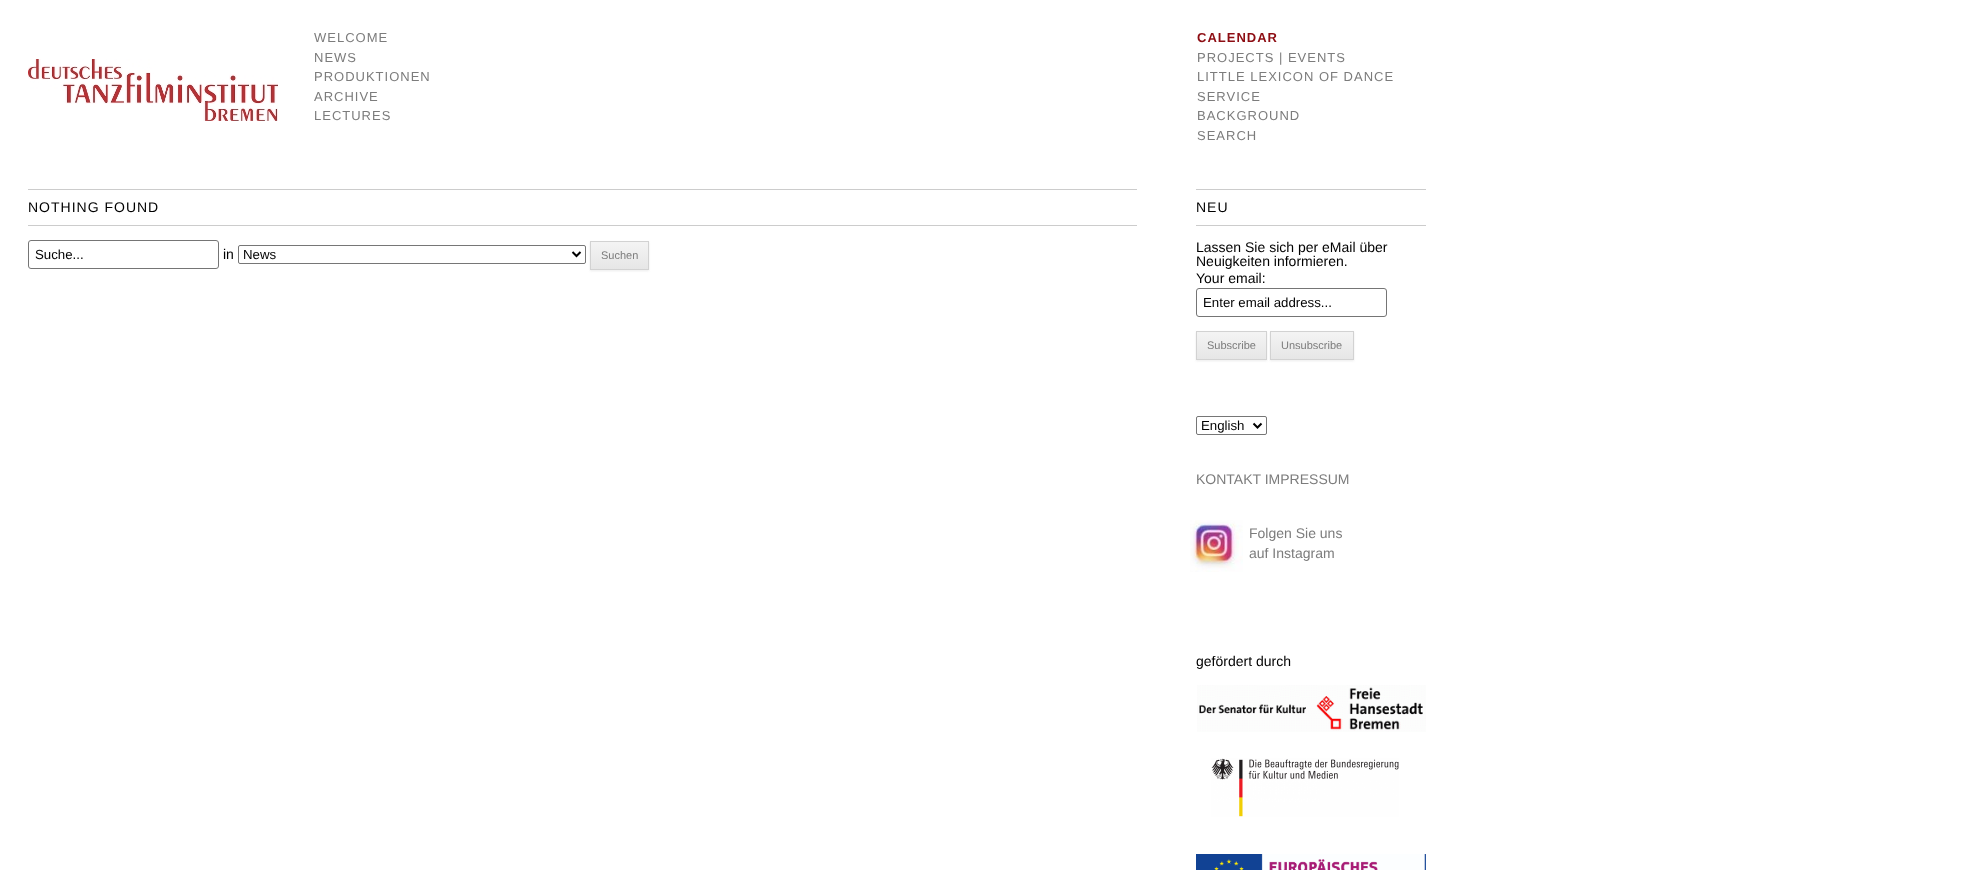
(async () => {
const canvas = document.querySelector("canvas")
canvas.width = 1970
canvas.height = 870
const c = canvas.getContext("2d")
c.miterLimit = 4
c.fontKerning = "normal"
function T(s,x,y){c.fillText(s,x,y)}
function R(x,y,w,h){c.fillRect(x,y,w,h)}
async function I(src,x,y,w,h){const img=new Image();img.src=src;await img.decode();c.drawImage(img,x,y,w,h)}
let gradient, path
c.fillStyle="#fff"
R(0,0,1970,870)
await I("1.png",28,59,250,62)
c.letterSpacing="1px"
c.font="13px Liberation Sans"
c.fillStyle="#7c7c7c"
T("WELCOME",314,42)
T("NEWS",314,62)
T("PRODUKTIONEN",314,81)
T("ARCHIVE",314,101)
T("LECTURES",314,120)
c.font="bold 13px Liberation Sans"
c.fillStyle="#8d0d13"
T("CALENDAR",1197,42)
c.font="13px Liberation Sans"
c.fillStyle="#7c7c7c"
T("PROJECTS | EVENTS",1197,62)
T("LITTLE LEXICON OF DANCE",1197,81)
T("SERVICE",1197,101)
T("BACKGROUND",1197,120)
T("SEARCH",1197,140)
c.fillStyle="#ccc"
R(28,189,1109,1)
R(28,225,1109,1)
c.font="14px Liberation Sans"
c.fillStyle="#000"
T("NOTHING FOUND",28,212)
c.beginPath()
c.roundRect(28.5,240.5,190,28,2.5)
c.strokeStyle="#757575"
c.stroke()
c.letterSpacing="0px"
c.font="13.25px Liberation Sans"
T("Suche...",35,259)
c.font="14px Liberation Sans"
T("in",223,259)
c.beginPath()
c.roundRect(238.5,245.5,347,18,1.5)
c.strokeStyle="#767676"
c.stroke()
path = new Path2D("M572.5 252l4 4l4-4")
c.strokeStyle="#000"
c.lineWidth=2
c.stroke(path)
c.font="13.25px Liberation Sans"
T("News",243,259)
c.fillStyle="#4040401a"
c.filter="blur(1px)"
c.beginPath()
c.rect(590,242,59,29)
c.fill()
c.filter="none"
gradient = c.createLinearGradient(620,242,620,269)
gradient.addColorStop(0,"#f4f4f4")
gradient.addColorStop(1,"#e6e6e6")
c.fillStyle = gradient
R(591,243,57,26)
c.strokeStyle="#d2d2d2"
c.lineWidth=1
c.strokeRect(590.5,241.5,58,28)
c.font="11px Liberation Sans"
c.fillStyle="#7c7c7c"
T("Suchen",601,259)
c.fillStyle="#ccc"
R(1196,189,230,1)
R(1196,225,230,1)
c.letterSpacing="1px"
c.font="14px Liberation Sans"
c.fillStyle="#000"
T("NEU",1196,212)
c.letterSpacing="0px"
T("Lassen Sie sich per eMail über",1196,252)
T("Neuigkeiten informieren.",1196,266)
T("Your email:",1196,283)
c.beginPath()
c.roundRect(1196.5,288.5,190,28,2.5)
c.strokeStyle="#757575"
c.stroke()
c.font="13.25px Liberation Sans"
T("Enter email address...",1203,307)
c.fillStyle="#4040401a"
c.filter="blur(1px)"
c.beginPath()
c.rect(1196,332,71,29)
c.fill()
c.filter="none"
gradient = c.createLinearGradient(1232,332,1232,359)
gradient.addColorStop(0,"#f4f4f4")
gradient.addColorStop(1,"#e6e6e6")
c.fillStyle = gradient
R(1197,333,69,26)
c.strokeStyle="#d2d2d2"
c.strokeRect(1196.5,331.5,70,28)
c.font="11px Liberation Sans"
c.fillStyle="#7c7c7c"
T("Subscribe",1207,349)
c.fillStyle="#4040401a"
c.filter="blur(1px)"
c.beginPath()
c.rect(1270,332,84,29)
c.fill()
c.filter="none"
gradient = c.createLinearGradient(1312,332,1312,359)
gradient.addColorStop(0,"#f4f4f4")
gradient.addColorStop(1,"#e6e6e6")
c.fillStyle = gradient
R(1271,333,82,26)
c.strokeRect(1270.5,331.5,83,28)
c.fillStyle="#7c7c7c"
T("Unsubscribe",1281,349)
c.beginPath()
c.roundRect(1196.5,416.5,70,18,1.5)
c.strokeStyle="#767676"
c.stroke()
path = new Path2D("M1253.5 423.5l4 4l4-4")
c.strokeStyle="#000"
c.lineWidth=2
c.stroke(path)
c.font="13.25px Liberation Sans"
c.fillStyle="#000"
T("English",1201,430)
c.font="14px Liberation Sans"
c.fillStyle="#7c7c7c"
T("KONTAKT IMPRESSUM",1196,484)
await I("2.png",1190,520,53,52)
T("Folgen Sie uns",1249,538)
T("auf Instagram",1249,558)
c.fillStyle="#000"
T("gefördert durch",1196,666)
await I("3.png",1197,685,229,47)
await I("4.png",1211,758,188,59)
await I("5.png",1196,854,230,16)
})()
